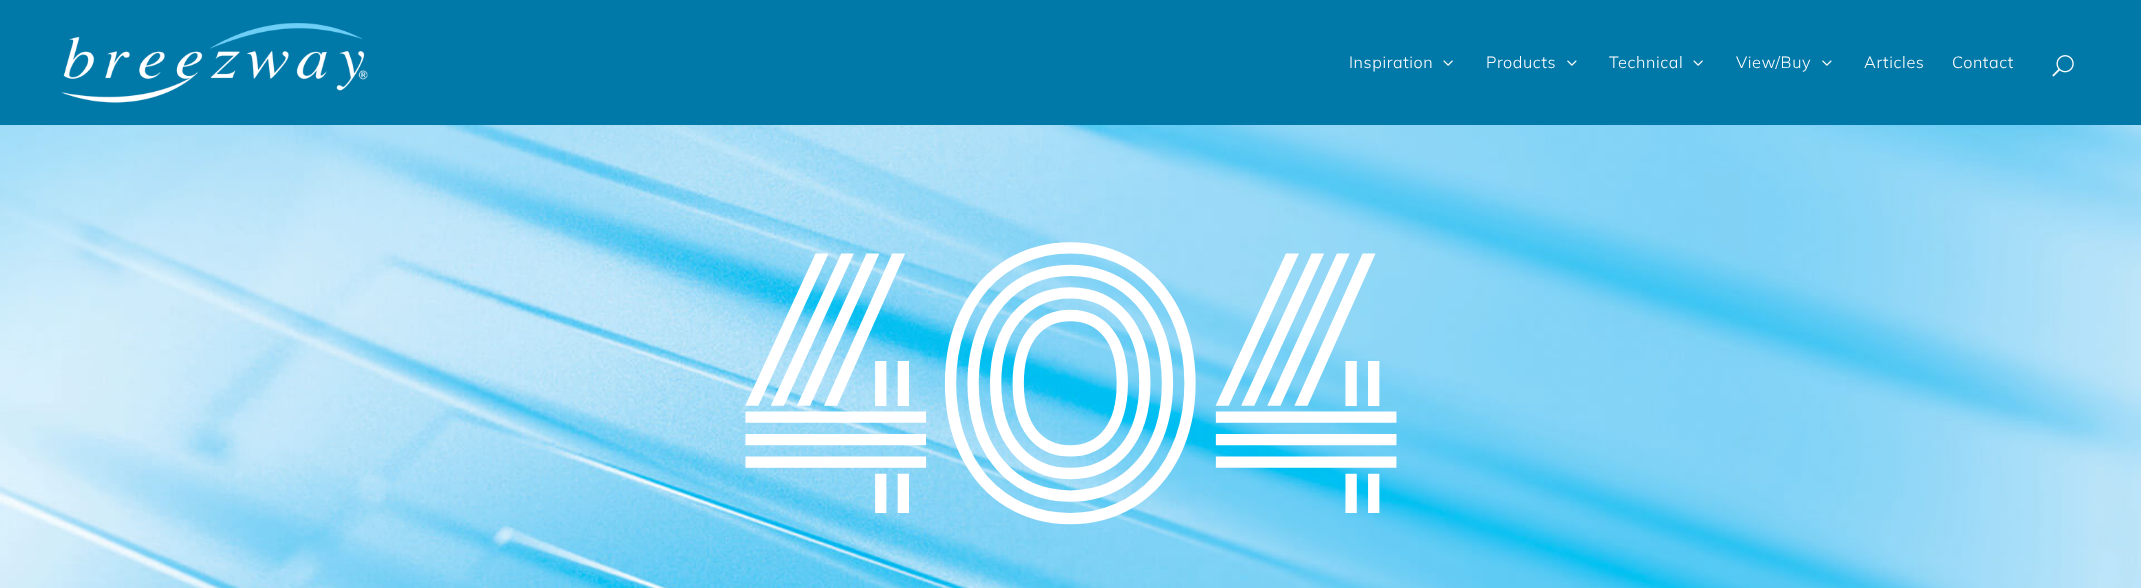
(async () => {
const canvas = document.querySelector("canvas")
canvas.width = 2141
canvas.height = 588
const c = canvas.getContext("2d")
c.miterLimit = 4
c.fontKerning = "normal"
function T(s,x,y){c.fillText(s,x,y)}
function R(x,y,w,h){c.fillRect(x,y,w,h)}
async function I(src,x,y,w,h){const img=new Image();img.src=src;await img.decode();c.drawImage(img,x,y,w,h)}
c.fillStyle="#fff"
R(0,0,2141,588)
c.fillStyle="#0078a8"
R(0,0,2141,125)
await I("1.png",61,23,307,80)
c.letterSpacing="0.6px"
c.font="300 16.25px Mulish"
c.fillStyle="#fff"
T("Inspiration",1349,68)
await I("2.png",1443,60,10,6)
T("Products",1486,68)
await I("3.png",1567,60,10,6)
T("Technical",1609,68)
await I("2.png",1693,60,10,6)
T("View/Buy",1736,68)
await I("3.png",1822,60,10,6)
T("Articles",1864,68)
T("Contact",1952,68)
await I("4.png",2052,55,22,22)
await I("5.png",0,125,2141,463)
c.letterSpacing="0px"
c.font="321px Monoton"
T("404",735,513)
})()
